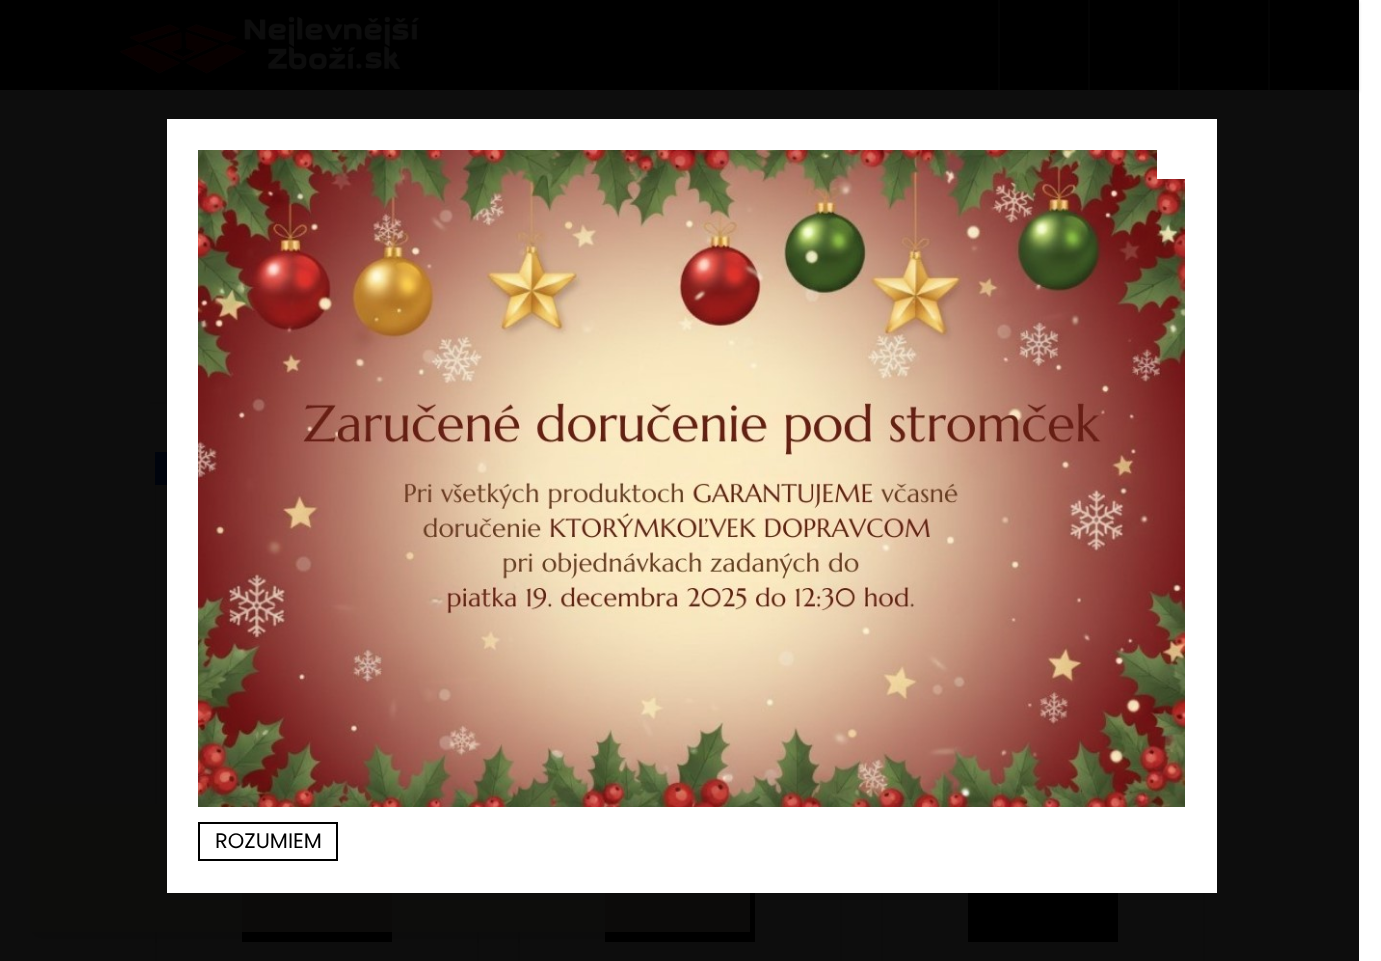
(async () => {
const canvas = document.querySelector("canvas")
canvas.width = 1381
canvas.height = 961
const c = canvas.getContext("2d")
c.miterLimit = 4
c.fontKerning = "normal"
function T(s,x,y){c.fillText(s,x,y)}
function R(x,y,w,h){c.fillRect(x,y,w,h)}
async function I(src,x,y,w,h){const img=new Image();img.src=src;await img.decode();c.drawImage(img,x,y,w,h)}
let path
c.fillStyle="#fff"
R(0,0,1381,961)
c.fillStyle="#00000029"
c.filter="blur(1.5px)"
c.beginPath()
c.rect(0,2,1359,90)
c.fill()
c.filter="none"
c.fillStyle="#000"
R(0,0,1359,90)
await I("1.png",120,16,299,58)
c.fillStyle="#ffffff4d"
R(1358,0,2,90)
c.fillStyle="#4d4d4d"
R(998,0,2,90)
R(1088,0,2,90)
R(1178,0,2,90)
R(1268,0,2,90)
c.fillStyle="#fff"
R(0,90,1359,4)
c.fillStyle="#e7e7e7"
R(150,402,15,2)
R(165,356,2,48)
c.strokeStyle="#e6e6e6"
c.lineWidth=2
c.strokeRect(156,453,322,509)
c.fillStyle="#1153ee"
R(155,452,12,33)
await I("2.png",156,485,11,210)
c.fillStyle="#000"
R(242,893,150,49)
c.strokeRect(519,453,322,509)
R(605,893,150,49)
c.strokeRect(882,453,322,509)
R(968,893,150,49)
c.save()
path = new Path2D("M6 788h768v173h-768zm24 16h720v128h-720z")
c.clip(path,"evenodd")
c.fillStyle="#00000024"
c.filter="blur(7.5px)"
c.beginPath()
c.rect(30,812,720,127)
c.fill()
c.filter="none"
c.restore()
c.fillStyle="#fdf3dae6"
R(30,804,720,128)
c.fillStyle="#000000f2"
R(0,0,1359,961)
c.fillStyle="#fff"
R(167,119,1050,774)
await I("3.png",198,150,987,657)
R(1157,150,28,29)
c.strokeStyle="#000"
c.strokeRect(199,823,138,37)
c.font="21px Poppins"
c.fillStyle="#000"
T("ROZUMIEM",215,848)
})()
